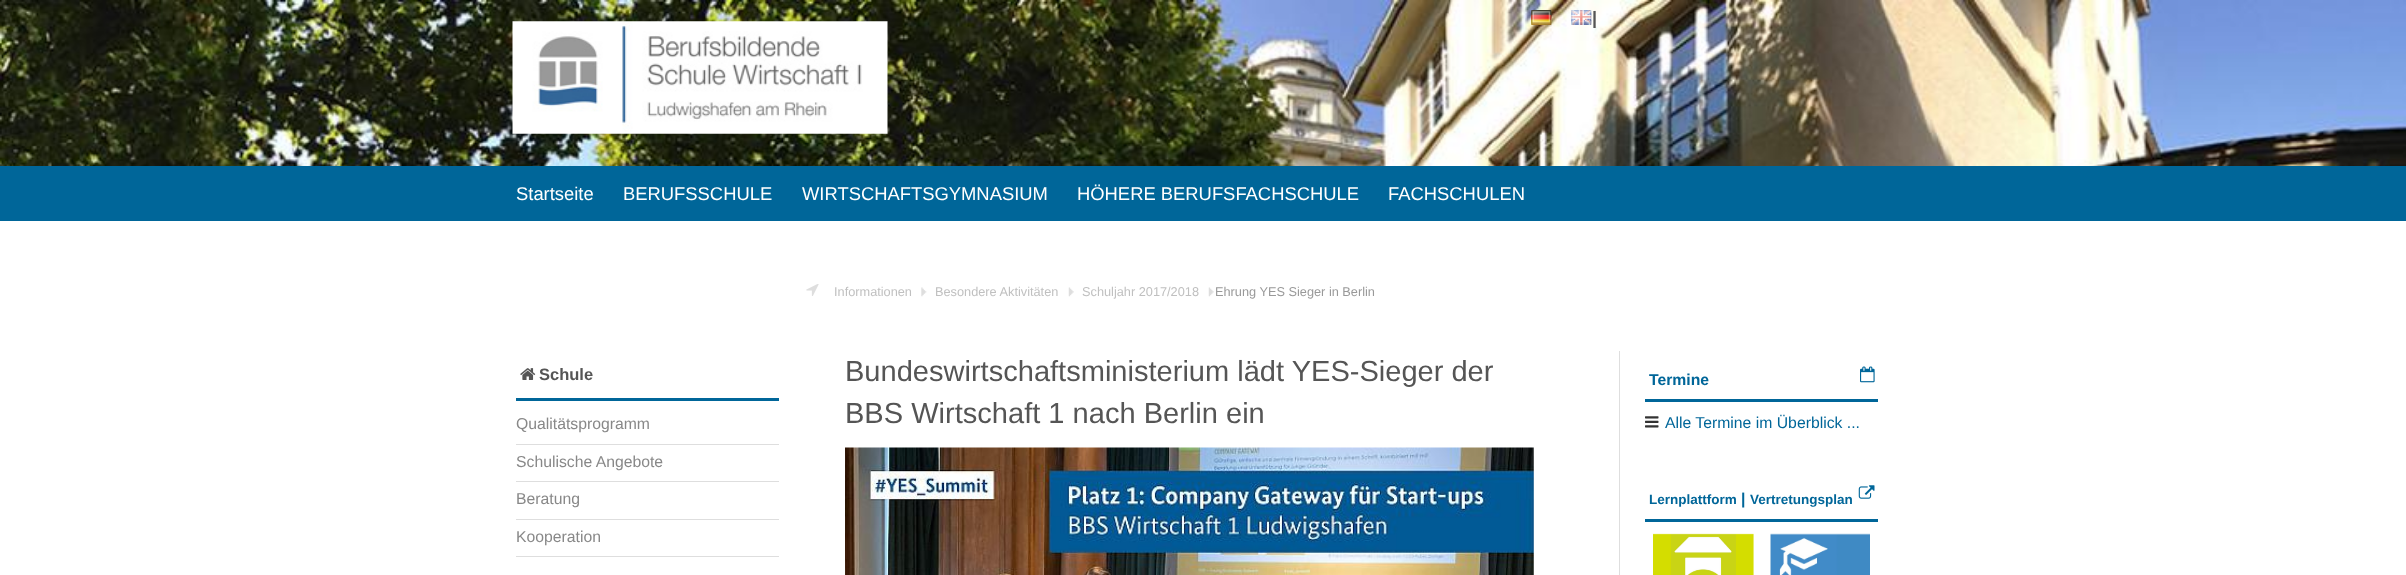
(async () => {
const canvas = document.querySelector("canvas")
canvas.width = 2406
canvas.height = 575
const c = canvas.getContext("2d")
c.miterLimit = 4
c.fontKerning = "normal"
function T(s,x,y){c.fillText(s,x,y)}
function R(x,y,w,h){c.fillRect(x,y,w,h)}
async function I(src,x,y,w,h){const img=new Image();img.src=src;await img.decode();c.drawImage(img,x,y,w,h)}
c.fillStyle="#fff"
R(0,0,2406,575)
await I("1.png",0,0,2406,166)
await I("2.png",512,21,376,113)
await I("4.png",1531,11,21,14)
await I("3.png",1531,10,21,14)
await I("6.png",1571,11,21,14)
await I("5.png",1571,10,21,14)
c.font="bold 18px Liberation Sans"
c.fillStyle="#555"
T("|",1592,24)
c.fillStyle="#069"
R(0,166,2406,55)
c.font="18.4px Liberation Sans"
c.fillStyle="#fff"
T("Startseite",516,200)
T("BERUFSSCHULE",623,200)
T("WIRTSCHAFTSGYMNASIUM",802,200)
T("HÖHERE BERUFSFACHSCHULE",1077,200)
T("FACHSCHULEN",1388,200)
await I("7.png",806,284,13,12)
c.font="12.75px Liberation Sans"
c.fillStyle="#c0c0c0"
T("Informationen",834,296)
await I("8.png",921,287,6,10)
T("Besondere Aktivitäten",935,296)
await I("9.png",1068,287,6,10)
T("Schuljahr 2017/2018",1082,296)
await I("9.png",1208,287,6,10)
c.fillStyle="#999"
T("Ehrung YES Sieger in Berlin",1215,296)
c.fillStyle="#069"
R(516,398,263,3)
await I("10.png",520,368,16,12)
c.font="bold 16.5px Liberation Sans"
c.fillStyle="#555"
T("Schule",539,380)
c.fillStyle="#dedede"
R(516,444,263,1)
c.font="15.75px Liberation Sans"
c.fillStyle="#888"
T("Qualitätsprogramm",516,429)
c.fillStyle="#dedede"
R(516,481,263,1)
c.fillStyle="#888"
T("Schulische Angebote",516,467)
c.fillStyle="#dedede"
R(516,519,263,1)
c.fillStyle="#888"
T("Beratung",516,504)
c.fillStyle="#dedede"
R(516,556,263,1)
c.fillStyle="#888"
T("Kooperation",516,542)
c.font="29.05px Liberation Sans"
c.fillStyle="#555"
T("Bundeswirtschaftsministerium lädt YES-Sieger der",845,381)
T("BBS Wirtschaft 1 nach Berlin ein",845,423)
await I("11.png",845,447,689,128)
c.fillStyle="#dedede"
R(1619,351,1,224)
c.fillStyle="#069"
R(1645,399,233,3)
c.font="bold 15.75px Liberation Sans"
T("Termine",1649,385)
await I("12.png",1860,366,15,17)
await I("13.png",1645,416,14,12)
c.font="15.75px Liberation Sans"
T("Alle Termine im Überblick ...",1665,428)
R(1645,519,233,3)
c.font="bold 13.5px Liberation Sans"
T("Lernplattform",1649,504)
c.font="bold 15.75px Liberation Sans"
T("|",1741,504)
c.font="bold 13.5px Liberation Sans"
T("Vertretungsplan",1750,504)
await I("14.png",1858,485,17,14)
await I("15.png",1653,533,101,42)
await I("16.png",1770,533,100,42)
})()
